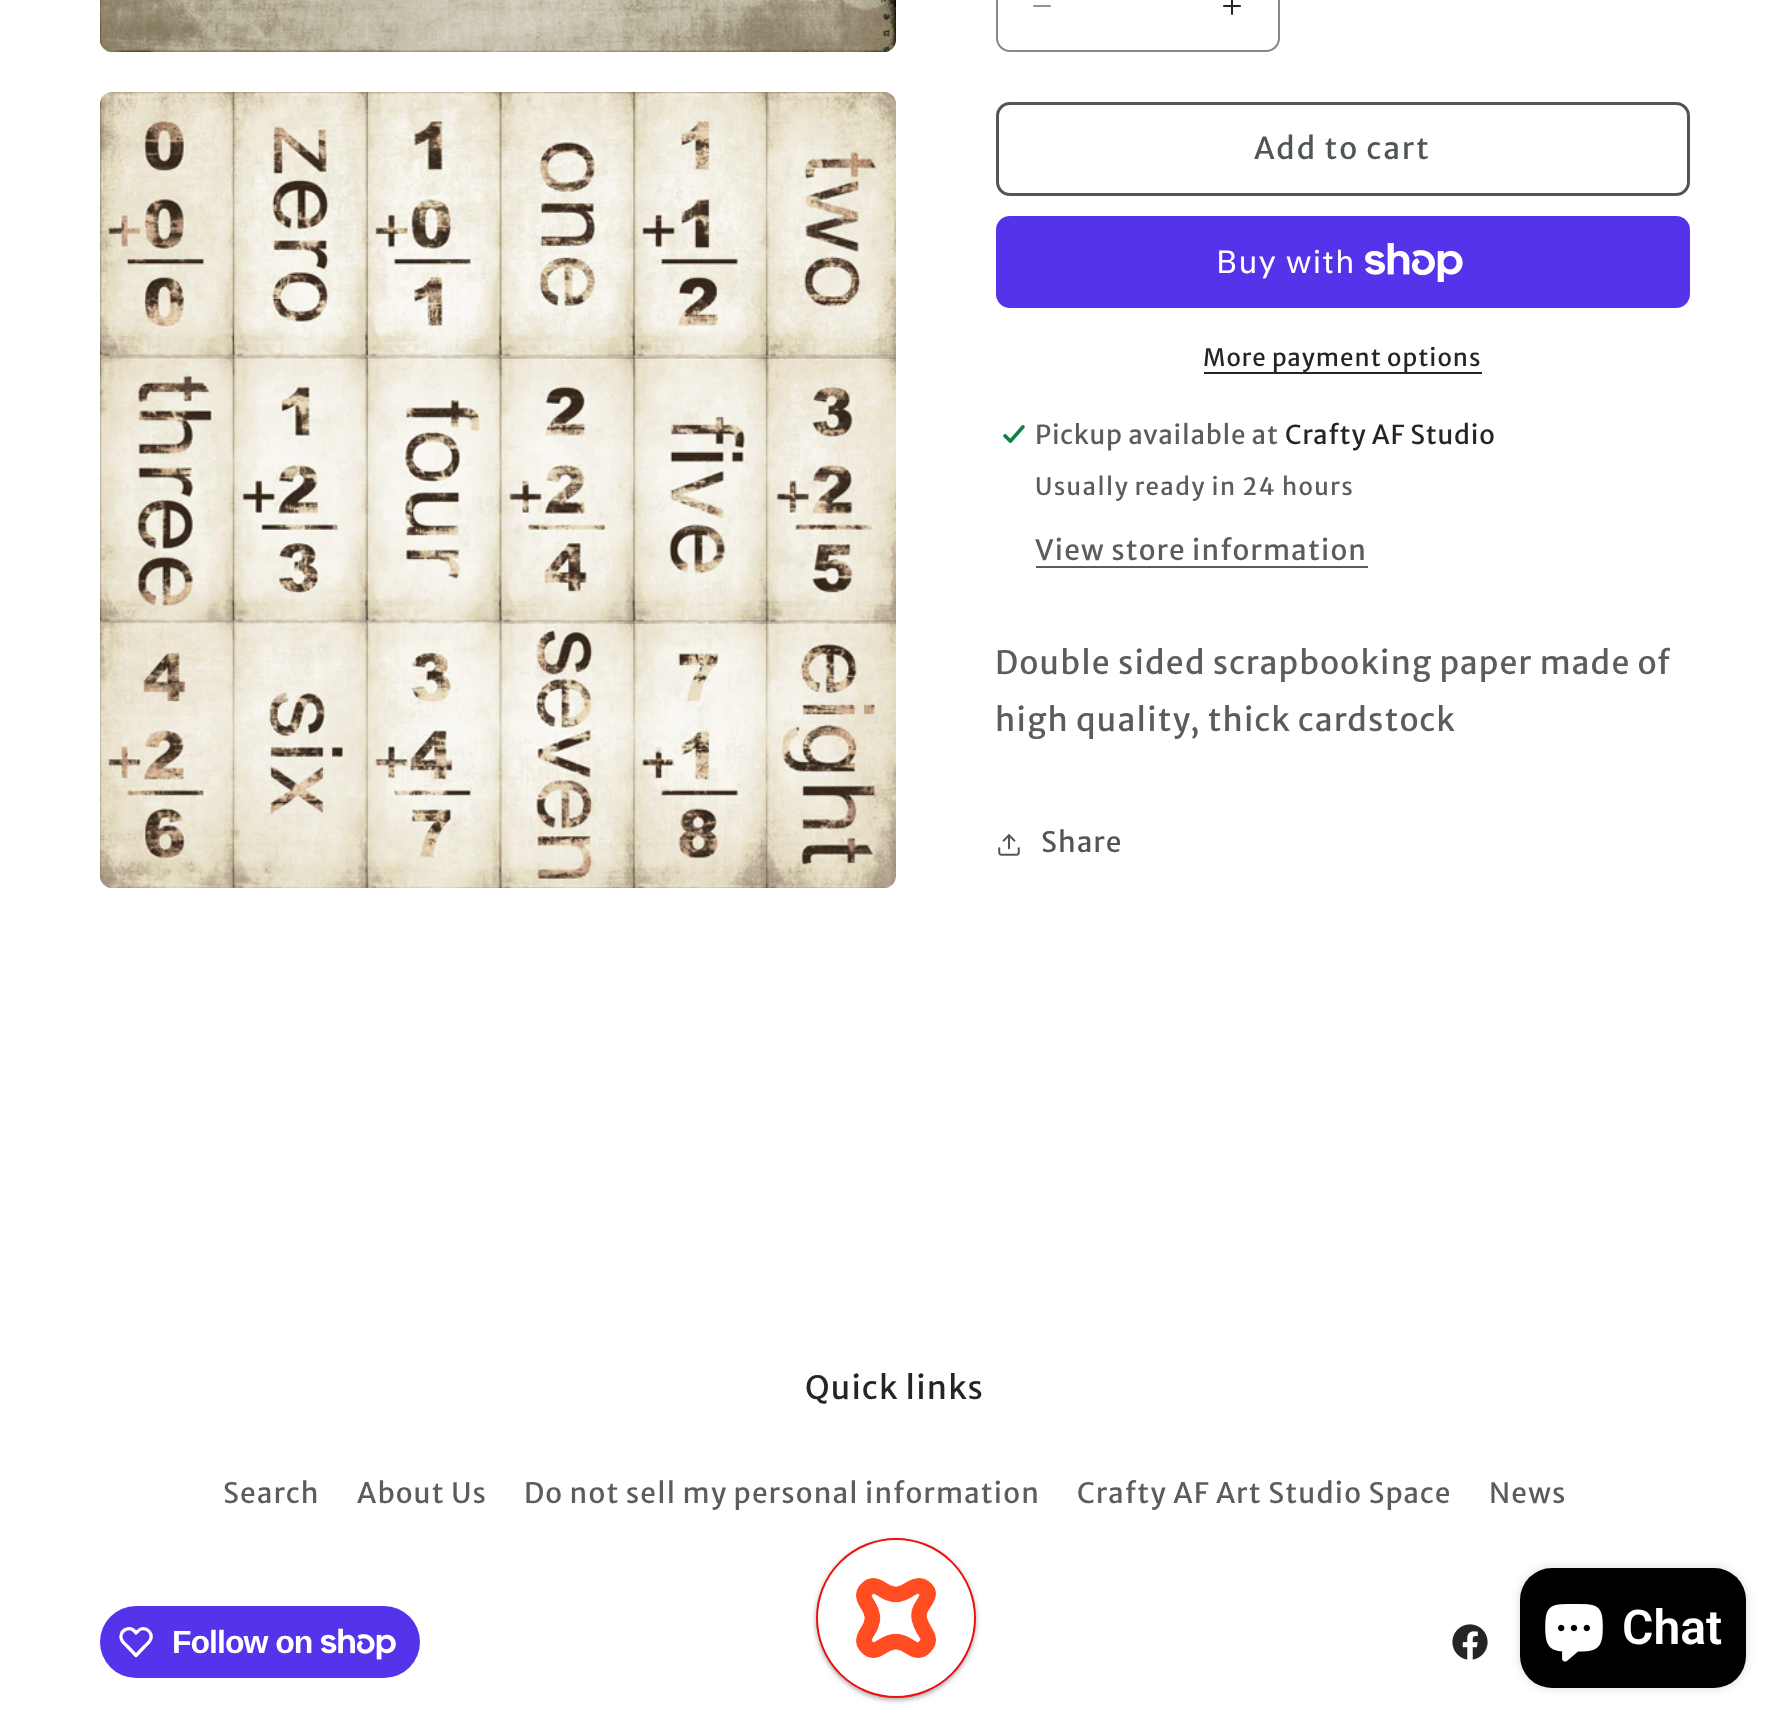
(async () => {
const canvas = document.querySelector("canvas")
canvas.width = 1790
canvas.height = 1730
const c = canvas.getContext("2d")
c.miterLimit = 4
c.fontKerning = "normal"
function T(s,x,y){c.fillText(s,x,y)}
function R(x,y,w,h){c.fillRect(x,y,w,h)}
function Q(x,y,w,h,r){c.beginPath();c.roundRect(x,y,w,h,r);c.fill()}
async function I(src,x,y,w,h){const img=new Image();img.src=src;await img.decode();c.drawImage(img,x,y,w,h)}
let path
c.fillStyle="#fff"
R(0,0,1790,1730)
await I("1.png",100,0,796,52)
await I("2.png",100,92,796,796)
await I("3.png",1033,5,18,2)
await I("4.png",1223,0,18,15)
c.beginPath()
c.roundRect(997,-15,282,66,13)
c.strokeStyle="#878787"
c.lineWidth=2
c.stroke()
c.beginPath()
c.roundRect(997.5,103.5,691,91,12.5)
c.strokeStyle="#505655"
c.lineWidth=3
c.stroke()
c.letterSpacing="2px"
c.font="30px Merriweather Sans"
c.fillStyle="#505655"
T("Add to cart",1254,159)
c.fillStyle="#5433eb"
Q(996,216,694,92,14)
c.letterSpacing="1.2px"
c.font="32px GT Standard"
c.fillStyle="#fff"
T("Buy with",1216,273)
await I("5.png",1365,243,98,39)
c.letterSpacing="1px"
c.font="24px Merriweather Sans"
c.fillStyle="#252525"
T("More payment options",1203,366)
R(1204,372,278,2)
await I("6.png",1003,425,22,18)
c.letterSpacing="0.75px"
c.font="26px Merriweather Sans"
c.fillStyle="#5c5c5c"
T("Pickup available at",1035,444)
c.fillStyle="#252525"
T("Crafty AF Studio",1285,444)
c.letterSpacing="1.4px"
c.font="24px Merriweather Sans"
c.fillStyle="#5c5c5c"
T("Usually ready in 24 hours",1035,495)
c.letterSpacing="1.2px"
c.font="28px Merriweather Sans"
T("View store information",1035,560)
R(1036,566,332,2)
c.font="32px Merriweather Sans"
T("Double sided scrapbooking paper made of",995,674)
T("high quality, thick cardstock",995,731)
await I("7.png",998,834,22,22)
c.font="28px Merriweather Sans"
c.fillStyle="#505655"
T("Share",1041,852)
c.font="32px Merriweather Sans"
c.fillStyle="#252525"
T("Quick links",805,1399)
c.font="28px Merriweather Sans"
c.fillStyle="#5c5c5c"
T("Search",223,1503)
T("About Us",357,1503)
T("Do not sell my personal information",524,1503)
T("Crafty AF Art Studio Space",1077,1503)
T("News",1489,1503)
c.fillStyle="#5433eb"
Q(100,1606,320,72,36)
path = new Path2D("M134.5 1631l1.5 2c1.5-1.5 3-3.5 5-4c6-2 12 4.5 9.5 10.5c-1 3-4 5-6 7l-8.5 9l-8.5-9c-2-2-5-4-6-7c-3-8 7-14.5 13-8.5z")
c.strokeStyle="#fff"
c.lineWidth=3.3
c.lineJoin="round"
c.stroke(path)
c.letterSpacing="-1px"
c.font="bold 32px Liberation Sans"
c.fillStyle="#fff"
T("Follow on",172,1653)
await I("8.png",321,1628,75,32)
await I("9.png",1452,1624,36,36)
c.fillStyle="#0000003d"
c.filter="blur(2px)"
c.beginPath()
c.roundRect(816,1540,160,160,80)
c.fill()
c.filter="none"
c.fillStyle="#0000001f"
c.filter="blur(3px)"
c.beginPath()
c.roundRect(816,1540,160,160,80)
c.fill()
c.filter="none"
c.fillStyle="#fff"
c.beginPath()
c.arc(896,1618,79,0,7)
c.fill()
c.strokeStyle="#ea1110"
c.lineWidth=2
c.stroke()
await I("10.png",856,1578,80,80)
c.fillStyle="#00000026"
c.filter="blur(5px)"
c.beginPath()
c.roundRect(1520,1568,226,120,32)
c.fill()
c.filter="none"
c.fillStyle="#000"
Q(1520,1568,226,120,32)
await I("11.png",1545,1604,58,58)
c.letterSpacing="0px"
c.font="600 48px Roboto"
c.fillStyle="#fff"
T("Chat",1622,1644)
})()
